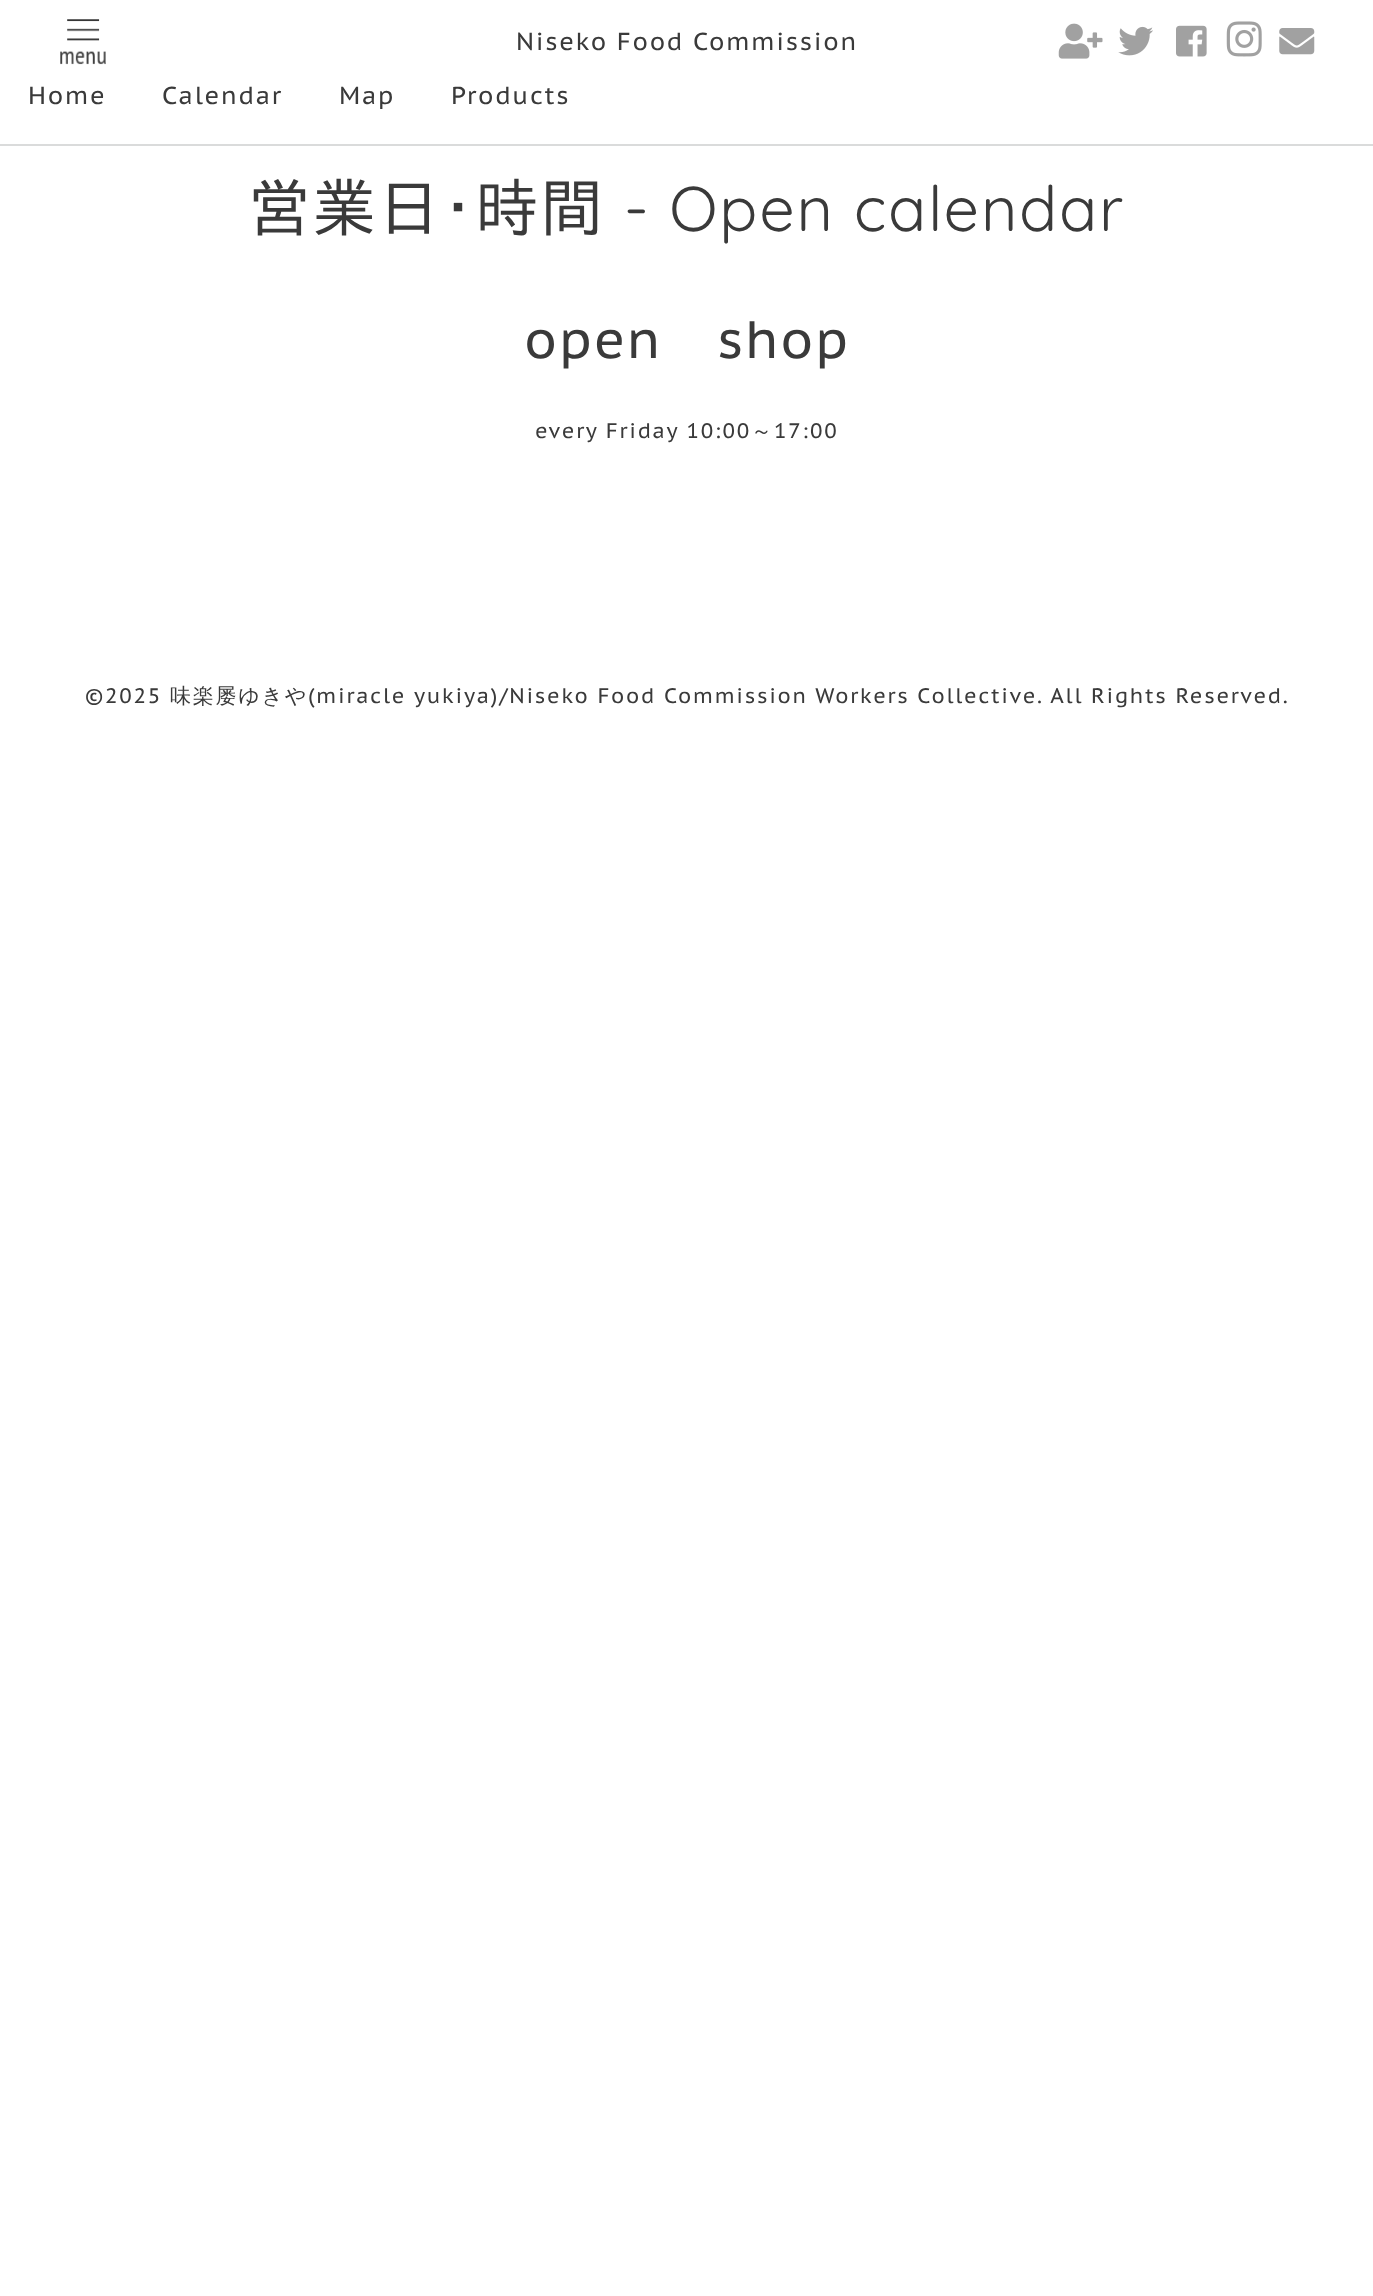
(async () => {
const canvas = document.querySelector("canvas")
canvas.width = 1373
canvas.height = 2296
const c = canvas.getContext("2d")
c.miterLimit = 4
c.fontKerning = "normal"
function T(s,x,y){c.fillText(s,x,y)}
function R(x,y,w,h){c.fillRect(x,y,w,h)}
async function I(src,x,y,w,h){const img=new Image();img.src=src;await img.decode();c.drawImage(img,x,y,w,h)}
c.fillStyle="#fff"
R(0,0,1373,2296)
c.fillStyle="#dadbdb"
R(0,144,1373,2)
await I("1.png",60,19,46,46)
c.letterSpacing="1.75px"
c.font="24.5px PT Sans Caption"
c.fillStyle="#3a3a3a"
T("Niseko Food Commission",516,50)
await I("2.png",1058,23,45,36)
await I("3.png",1118,26,35,30)
await I("4.png",1176,25,31,32)
await I("5.png",1226,21,36,36)
await I("6.png",1279,28,36,27)
T("Home",28,104)
T("Calendar",162,104)
T("Map",339,104)
T("Products",451,104)
c.font="63px IPAPGothic"
T("営業日･時間",248,231)
c.font="63px Quicksand"
T("- Open calendar",624,231)
c.font="52.5px PT Sans Caption"
T("open",524,358)
T("shop",717,358)
c.font="21px PT Sans Caption"
T("every Friday 10:00",535,438)
c.font="500 21px WenQuanYi Zen Hei"
T("～",751,438)
c.font="21px PT Sans Caption"
T("17:00",774,438)
T("©2025",85,703)
c.font="500 21px WenQuanYi Zen Hei"
T("味楽屡ゆきや",170,703)
c.font="21px PT Sans Caption"
T("(miracle yukiya)/Niseko Food Commission Workers Collective. All Rights Reserved.",308,703)
})()
